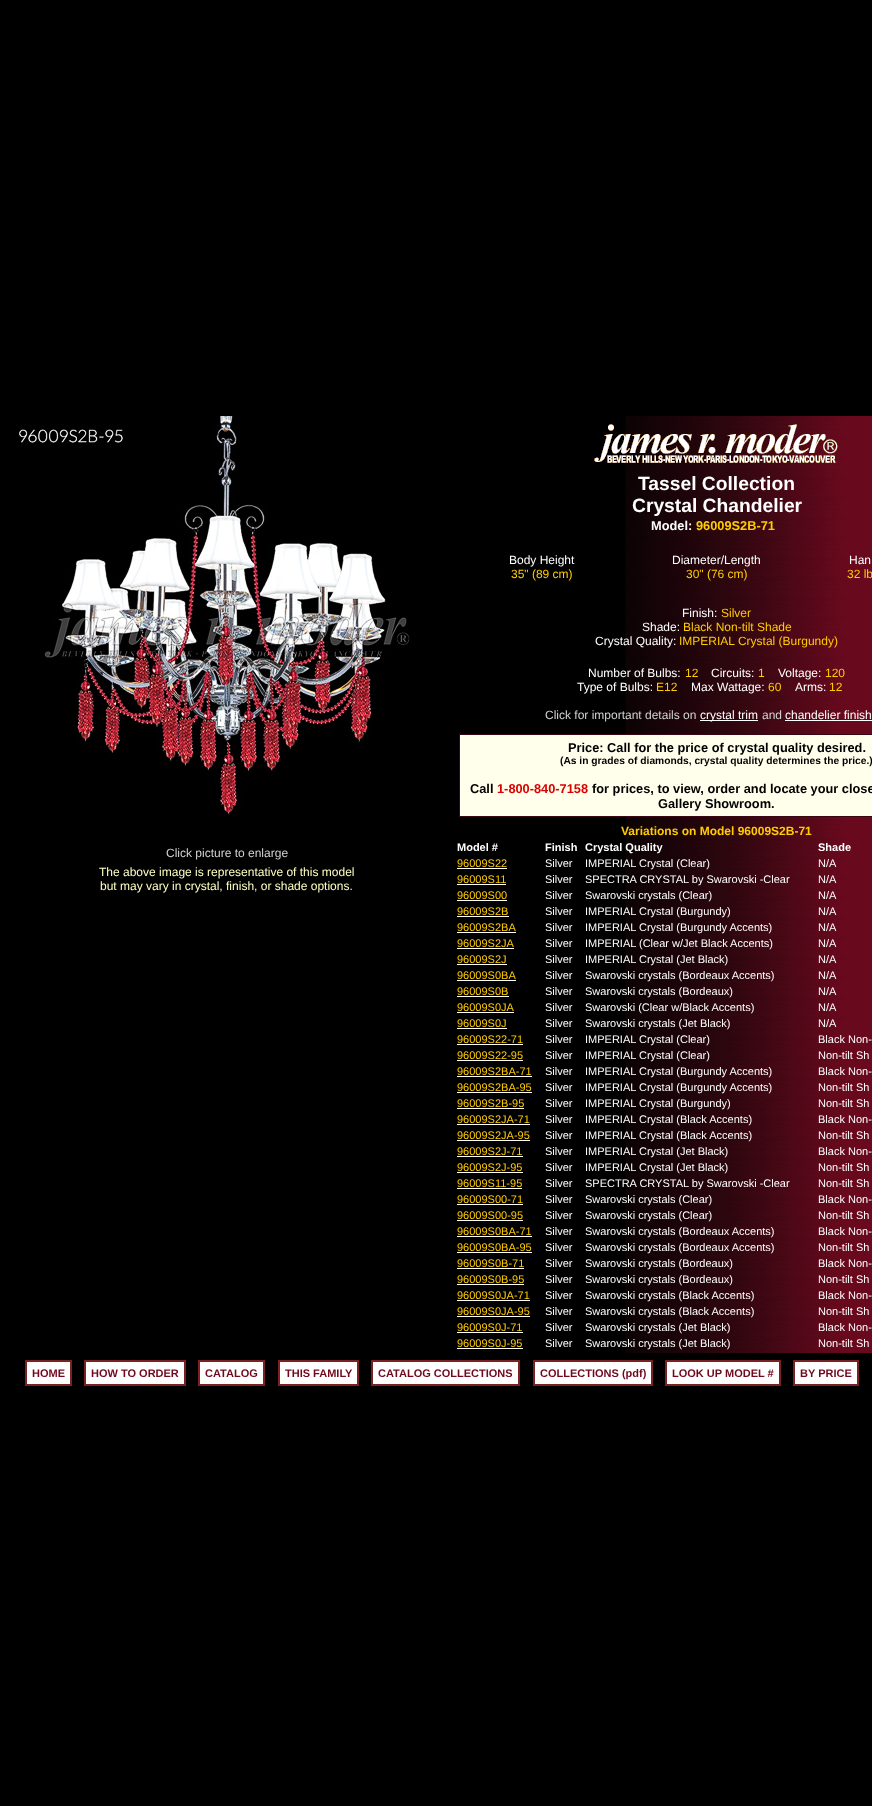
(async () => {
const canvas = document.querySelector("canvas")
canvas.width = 872
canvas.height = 1806
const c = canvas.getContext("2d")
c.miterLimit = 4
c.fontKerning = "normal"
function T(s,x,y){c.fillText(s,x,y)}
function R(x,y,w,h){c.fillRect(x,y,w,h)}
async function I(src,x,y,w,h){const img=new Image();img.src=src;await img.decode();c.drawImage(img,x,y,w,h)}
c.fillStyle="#000"
R(0,0,872,1806)
await I("1.png",19,416,391,400)
c.font="12px Liberation Sans"
c.fillStyle="#d3d3d3"
T("Click picture to enlarge",166,857)
c.fillStyle="#ffffc1"
T("The above image is representative of this model",99,876)
T("but may vary in crystal, finish, or shade options.",100,890)
await I("2.png",625,416,247,937)
await I("3.png",594,424,244,39)
c.font="bold 19.25px Liberation Sans"
c.fillStyle="#fff"
T("Tassel Collection",638,490)
T("Crystal Chandelier",632,512)
c.font="bold 12.8px Liberation Sans"
T("Model:",651,530)
c.fillStyle="#fc0"
T("96009S2B-71",696,530)
c.font="12px Liberation Sans"
c.fillStyle="#fff"
T("Body Height",509,564)
c.fillStyle="#fc0"
T("35\" (89 cm)",511,578)
c.fillStyle="#fff"
T("Diameter/Length",672,564)
c.fillStyle="#fc0"
T("30\" (76 cm)",686,578)
c.fillStyle="#fff"
T("Han",849,564)
c.fillStyle="#fc0"
T("32 lb",847,578)
c.fillStyle="#fff"
T("Finish:",682,617)
c.fillStyle="#fc0"
T("Silver",721,617)
c.fillStyle="#fff"
T("Shade:",642,631)
c.fillStyle="#fc0"
T("Black Non-tilt Shade",683,631)
c.fillStyle="#fff"
T("Crystal Quality:",595,645)
c.fillStyle="#fc0"
T("IMPERIAL Crystal (Burgundy)",679,645)
c.fillStyle="#fff"
T("Number of Bulbs:",588,677)
c.fillStyle="#fc0"
T("12",685,677)
c.fillStyle="#fff"
T("Circuits:",711,677)
c.fillStyle="#fc0"
T("1",758,677)
c.fillStyle="#fff"
T("Voltage:",778,677)
c.fillStyle="#fc0"
T("120",825,677)
c.fillStyle="#fff"
T("Type of Bulbs:",577,691)
c.fillStyle="#fc0"
T("E12",656,691)
c.fillStyle="#fff"
T("Max Wattage:",691,691)
c.fillStyle="#fc0"
T("60",768,691)
c.fillStyle="#fff"
T("Arms:",795,691)
c.fillStyle="#fc0"
T("12",829,691)
c.fillStyle="#d3d3d3"
T("Click for important details on",545,719)
c.fillStyle="#fff"
R(700,720,58,1)
T("crystal trim",700,719)
c.fillStyle="#d3d3d3"
T("and",762,719)
c.fillStyle="#fff"
T("chandelier finish",785,719)
R(785,720,87,1)
c.fillStyle="#ffffec"
c.beginPath()
c.rect(459.5,734.5,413,82)
c.fill()
c.strokeStyle="#390712"
c.stroke()
c.font="bold 12.8px Liberation Sans"
c.fillStyle="#000"
T("Price: Call for the price of crystal quality desired.",568,752)
c.font="bold 10.25px Liberation Sans"
T("(As in grades of diamonds, crystal quality determines the price.)",560,764)
c.font="bold 12.8px Liberation Sans"
T("Call",470,793)
c.fillStyle="#d90000"
T("1-800-840-7158",497,793)
c.fillStyle="#000"
T("for prices, to view, order and locate your close",592,793)
T("Gallery Showroom.",658,808)
c.font="bold 12px Liberation Sans"
c.fillStyle="#fc0"
T("Variations on Model 96009S2B-71",621,835)
c.font="bold 11px Liberation Sans"
c.fillStyle="#fff"
T("Model #",457,851)
T("Finish",545,851)
T("Crystal Quality",585,851)
T("Shade",818,851)
c.font="11px Liberation Sans"
c.fillStyle="#fc0"
T("96009S22",457,867)
c.fillStyle="#fff"
R(457,868,50,1)
T("Silver",545,867)
T("IMPERIAL Crystal (Clear)",585,867)
T("N/A",818,867)
c.fillStyle="#fc0"
T("96009S11",457,883)
c.fillStyle="#fff"
R(457,884,49,1)
T("Silver",545,883)
T("SPECTRA CRYSTAL by Swarovski -Clear",585,883)
T("N/A",818,883)
c.fillStyle="#fc0"
T("96009S00",457,899)
c.fillStyle="#fff"
R(457,900,50,1)
T("Silver",545,899)
T("Swarovski crystals (Clear)",585,899)
T("N/A",818,899)
c.fillStyle="#fc0"
T("96009S2B",457,915)
c.fillStyle="#fff"
R(457,916,52,1)
T("Silver",545,915)
T("IMPERIAL Crystal (Burgundy)",585,915)
T("N/A",818,915)
c.fillStyle="#fc0"
T("96009S2BA",457,931)
c.fillStyle="#fff"
R(457,932,59,1)
T("Silver",545,931)
T("IMPERIAL Crystal (Burgundy Accents)",585,931)
T("N/A",818,931)
c.fillStyle="#fc0"
T("96009S2JA",457,947)
c.fillStyle="#fff"
R(457,948,57,1)
T("Silver",545,947)
T("IMPERIAL (Clear w/Jet Black Accents)",585,947)
T("N/A",818,947)
c.fillStyle="#fc0"
T("96009S2J",457,963)
c.fillStyle="#fff"
R(457,964,50,1)
T("Silver",545,963)
T("IMPERIAL Crystal (Jet Black)",585,963)
T("N/A",818,963)
c.fillStyle="#fc0"
T("96009S0BA",457,979)
c.fillStyle="#fff"
R(457,980,59,1)
T("Silver",545,979)
T("Swarovski crystals (Bordeaux Accents)",585,979)
T("N/A",818,979)
c.fillStyle="#fc0"
T("96009S0B",457,995)
c.fillStyle="#fff"
R(457,996,52,1)
T("Silver",545,995)
T("Swarovski crystals (Bordeaux)",585,995)
T("N/A",818,995)
c.fillStyle="#fc0"
T("96009S0JA",457,1011)
c.fillStyle="#fff"
R(457,1012,57,1)
T("Silver",545,1011)
T("Swarovski (Clear w/Black Accents)",585,1011)
T("N/A",818,1011)
c.fillStyle="#fc0"
T("96009S0J",457,1027)
c.fillStyle="#fff"
R(457,1028,50,1)
T("Silver",545,1027)
T("Swarovski crystals (Jet Black)",585,1027)
T("N/A",818,1027)
c.fillStyle="#fc0"
T("96009S22-71",457,1043)
c.fillStyle="#fff"
R(457,1044,66,1)
T("Silver",545,1043)
T("IMPERIAL Crystal (Clear)",585,1043)
T("Black Non-",818,1043)
c.fillStyle="#fc0"
T("96009S22-95",457,1059)
c.fillStyle="#fff"
R(457,1060,66,1)
T("Silver",545,1059)
T("IMPERIAL Crystal (Clear)",585,1059)
T("Non-tilt Sh",818,1059)
c.fillStyle="#fc0"
T("96009S2BA-71",457,1075)
c.fillStyle="#fff"
R(457,1076,75,1)
T("Silver",545,1075)
T("IMPERIAL Crystal (Burgundy Accents)",585,1075)
T("Black Non-",818,1075)
c.fillStyle="#fc0"
T("96009S2BA-95",457,1091)
c.fillStyle="#fff"
R(457,1092,75,1)
T("Silver",545,1091)
T("IMPERIAL Crystal (Burgundy Accents)",585,1091)
T("Non-tilt Sh",818,1091)
c.fillStyle="#fc0"
T("96009S2B-95",457,1107)
c.fillStyle="#fff"
R(457,1108,67,1)
T("Silver",545,1107)
T("IMPERIAL Crystal (Burgundy)",585,1107)
T("Non-tilt Sh",818,1107)
c.fillStyle="#fc0"
T("96009S2JA-71",457,1123)
c.fillStyle="#fff"
R(457,1124,73,1)
T("Silver",545,1123)
T("IMPERIAL Crystal (Black Accents)",585,1123)
T("Black Non-",818,1123)
c.fillStyle="#fc0"
T("96009S2JA-95",457,1139)
c.fillStyle="#fff"
R(457,1140,73,1)
T("Silver",545,1139)
T("IMPERIAL Crystal (Black Accents)",585,1139)
T("Non-tilt Sh",818,1139)
c.fillStyle="#fc0"
T("96009S2J-71",457,1155)
c.fillStyle="#fff"
R(457,1156,66,1)
T("Silver",545,1155)
T("IMPERIAL Crystal (Jet Black)",585,1155)
T("Black Non-",818,1155)
c.fillStyle="#fc0"
T("96009S2J-95",457,1171)
c.fillStyle="#fff"
R(457,1172,66,1)
T("Silver",545,1171)
T("IMPERIAL Crystal (Jet Black)",585,1171)
T("Non-tilt Sh",818,1171)
c.fillStyle="#fc0"
T("96009S11-95",457,1187)
c.fillStyle="#fff"
R(457,1188,65,1)
T("Silver",545,1187)
T("SPECTRA CRYSTAL by Swarovski -Clear",585,1187)
T("Non-tilt Sh",818,1187)
c.fillStyle="#fc0"
T("96009S00-71",457,1203)
c.fillStyle="#fff"
R(457,1204,66,1)
T("Silver",545,1203)
T("Swarovski crystals (Clear)",585,1203)
T("Black Non-",818,1203)
c.fillStyle="#fc0"
T("96009S00-95",457,1219)
c.fillStyle="#fff"
R(457,1220,66,1)
T("Silver",545,1219)
T("Swarovski crystals (Clear)",585,1219)
T("Non-tilt Sh",818,1219)
c.fillStyle="#fc0"
T("96009S0BA-71",457,1235)
c.fillStyle="#fff"
R(457,1236,75,1)
T("Silver",545,1235)
T("Swarovski crystals (Bordeaux Accents)",585,1235)
T("Black Non-",818,1235)
c.fillStyle="#fc0"
T("96009S0BA-95",457,1251)
c.fillStyle="#fff"
R(457,1252,75,1)
T("Silver",545,1251)
T("Swarovski crystals (Bordeaux Accents)",585,1251)
T("Non-tilt Sh",818,1251)
c.fillStyle="#fc0"
T("96009S0B-71",457,1267)
c.fillStyle="#fff"
R(457,1268,67,1)
T("Silver",545,1267)
T("Swarovski crystals (Bordeaux)",585,1267)
T("Black Non-",818,1267)
c.fillStyle="#fc0"
T("96009S0B-95",457,1283)
c.fillStyle="#fff"
R(457,1284,67,1)
T("Silver",545,1283)
T("Swarovski crystals (Bordeaux)",585,1283)
T("Non-tilt Sh",818,1283)
c.fillStyle="#fc0"
T("96009S0JA-71",457,1299)
c.fillStyle="#fff"
R(457,1300,73,1)
T("Silver",545,1299)
T("Swarovski crystals (Black Accents)",585,1299)
T("Black Non-",818,1299)
c.fillStyle="#fc0"
T("96009S0JA-95",457,1315)
c.fillStyle="#fff"
R(457,1316,73,1)
T("Silver",545,1315)
T("Swarovski crystals (Black Accents)",585,1315)
T("Non-tilt Sh",818,1315)
c.fillStyle="#fc0"
T("96009S0J-71",457,1331)
c.fillStyle="#fff"
R(457,1332,66,1)
T("Silver",545,1331)
T("Swarovski crystals (Jet Black)",585,1331)
T("Black Non-",818,1331)
c.fillStyle="#fc0"
T("96009S0J-95",457,1347)
c.fillStyle="#fff"
R(457,1348,66,1)
T("Silver",545,1347)
T("Swarovski crystals (Jet Black)",585,1347)
T("Non-tilt Sh",818,1347)
c.beginPath()
c.rect(26,1361,45,24)
c.fill()
c.strokeStyle="#7a2121"
c.lineWidth=2
c.stroke()
c.font="bold 11px Liberation Sans"
c.fillStyle="#6f091f"
T("HOME",32,1377)
c.fillStyle="#fff"
c.beginPath()
c.rect(85,1361,100,24)
c.fill()
c.stroke()
c.fillStyle="#6f091f"
T("HOW TO ORDER",91,1377)
c.fillStyle="#fff"
c.beginPath()
c.rect(199,1361,65,24)
c.fill()
c.stroke()
c.fillStyle="#6f091f"
T("CATALOG",205,1377)
c.fillStyle="#fff"
c.beginPath()
c.rect(279,1361,79,24)
c.fill()
c.stroke()
c.fillStyle="#6f091f"
T("THIS FAMILY",285,1377)
c.fillStyle="#fff"
c.beginPath()
c.rect(372,1361,147,24)
c.fill()
c.stroke()
c.fillStyle="#6f091f"
T("CATALOG COLLECTIONS",378,1377)
c.fillStyle="#fff"
c.beginPath()
c.rect(534,1361,118,24)
c.fill()
c.stroke()
c.fillStyle="#6f091f"
T("COLLECTIONS (pdf)",540,1377)
c.fillStyle="#fff"
c.beginPath()
c.rect(666,1361,114,24)
c.fill()
c.stroke()
c.fillStyle="#6f091f"
T("LOOK UP MODEL #",672,1377)
c.fillStyle="#fff"
c.beginPath()
c.rect(794,1361,64,24)
c.fill()
c.stroke()
c.fillStyle="#6f091f"
T("BY PRICE",800,1377)
})()
